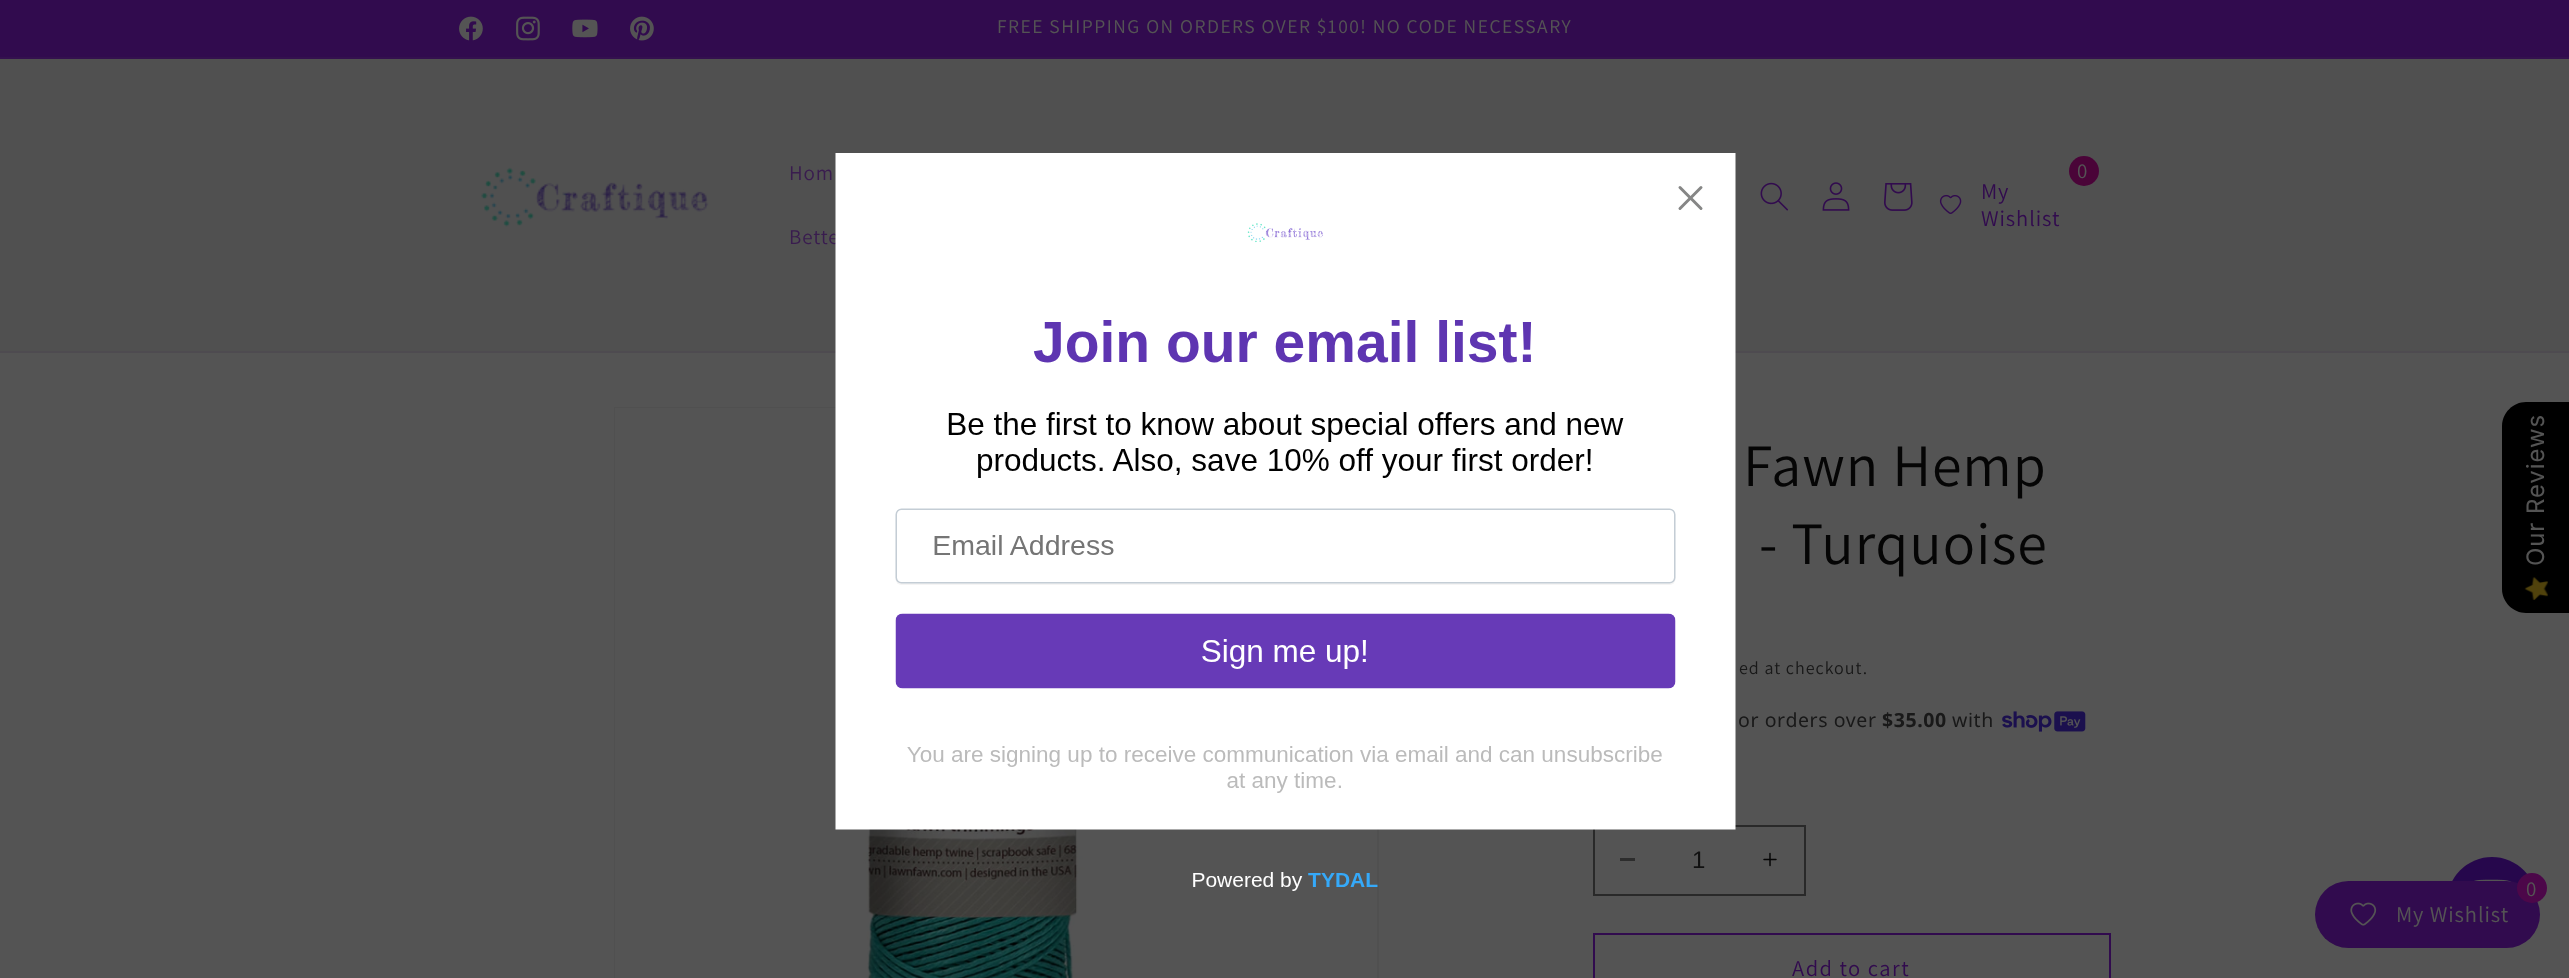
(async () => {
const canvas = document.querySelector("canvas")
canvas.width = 2569
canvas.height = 978
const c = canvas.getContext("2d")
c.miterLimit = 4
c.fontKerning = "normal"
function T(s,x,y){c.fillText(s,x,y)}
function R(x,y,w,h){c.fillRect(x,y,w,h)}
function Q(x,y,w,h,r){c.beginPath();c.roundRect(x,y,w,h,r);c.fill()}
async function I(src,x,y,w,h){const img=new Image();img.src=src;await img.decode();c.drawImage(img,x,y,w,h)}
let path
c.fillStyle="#fff"
R(0,0,2569,978)
c.fillStyle="#9622eb"
R(0,0,2569,57)
c.fillStyle="#9e34ed"
R(0,57,2569,2)
await I("2.png",459,16,24,25)
await I("3.png",516,16,24,25)
await I("4.png",572,19,26,19)
await I("5.png",630,16,24,25)
c.letterSpacing="1.5px"
c.font="19.5px Assistant"
c.fillStyle="#fff"
T("FREE SHIPPING ON ORDERS OVER $100! NO CODE NECESSARY",997,33)
c.fillStyle="#f3f3f3"
R(0,59,2569,292)
c.fillStyle="#ece2f2"
R(0,351,2569,2)
await I("6.png",481,167,228,60)
c.letterSpacing="0.9px"
c.font="21px Assistant"
c.fillStyle="#ad56ed"
T("Hom",789,180)
T("Bette",789,244)
await I("7.png",1760,182,28,29)
await I("8.png",1822,182,28,29)
await I("9.png",1884,183,29,28)
c.fillStyle="#e00dab"
c.beginPath()
c.arc(2084,171,15,0,7)
c.fill()
c.fillStyle="#fff"
T("0",2077,178)
await I("10.png",1939,194,23,20)
c.font="22.5px Assistant"
c.fillStyle="#9622eb"
T("My",1981,199)
T("Wishlist",1981,226)
c.strokeStyle="#f3f3f3"
c.lineWidth=2
c.strokeRect(615,408,763,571)
await I("11.png",615,408,762,570)
c.font="60px Assistant"
c.fillStyle="#121212"
T("Fawn Hemp",1743,486)
T("- Turquoise",1759,564)
c.letterSpacing="1px"
c.font="18px Assistant"
c.fillStyle="#4d4d4d"
T("ed at checkout.",1739,674)
c.letterSpacing="0.6px"
c.font="19.5px Noto Sans"
T("or orders over",1738,727)
c.font="bold 19.5px Noto Sans"
T("$35.00",1882,727)
c.font="19.5px Noto Sans"
T("with",1952,727)
await I("12.png",2002,711,84,21)
c.fillStyle="#898989"
R(1620,858,15,3)
await I("13.png",1763,852,14,15)
c.strokeStyle="#7d7d7d"
c.strokeRect(1594,826,211,69)
c.letterSpacing="0px"
c.font="24px Liberation Sans"
c.fillStyle="#363636"
T("1",1692,868)
c.strokeStyle="#9622eb"
c.strokeRect(1594,934,516,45)
c.letterSpacing="1.5px"
c.font="22.5px Assistant"
c.fillStyle="#9622eb"
T("Add to cart",1792,976)
c.fillStyle="#000"
path = new Path2D("M2502 589v-163c0-13 11-24 24-24h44v211h-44c-13 0-24-11-24-24z")
c.fill(path)
c.letterSpacing="0.9px"
c.font="24px Inter"
c.fillStyle="#fff"
c.save()
c.translate(2544,566)
c.rotate(-90 * Math.PI / 180)
c.fillText("Our Reviews",0,0)
c.restore()
await I("14.png",2524,577,24,23)
c.fillStyle="#7518e5"
c.beginPath()
c.arc(2492,902,45,0,7)
c.fill()
await I("15.png",2474,879,38,3)
c.fillStyle="#9622eb"
Q(2315,881,225,67,33.5)
c.fillStyle="#e617dc"
c.beginPath()
c.arc(2532,888,15,0,7)
c.fill()
c.font="21px Assistant"
c.fillStyle="#fff"
T("0",2526,896)
await I("16.png",2350,902,27,24)
c.font="22.5px Assistant"
T("My Wishlist",2396,922)
await I("1.png",0,0,2569,978)
})()
